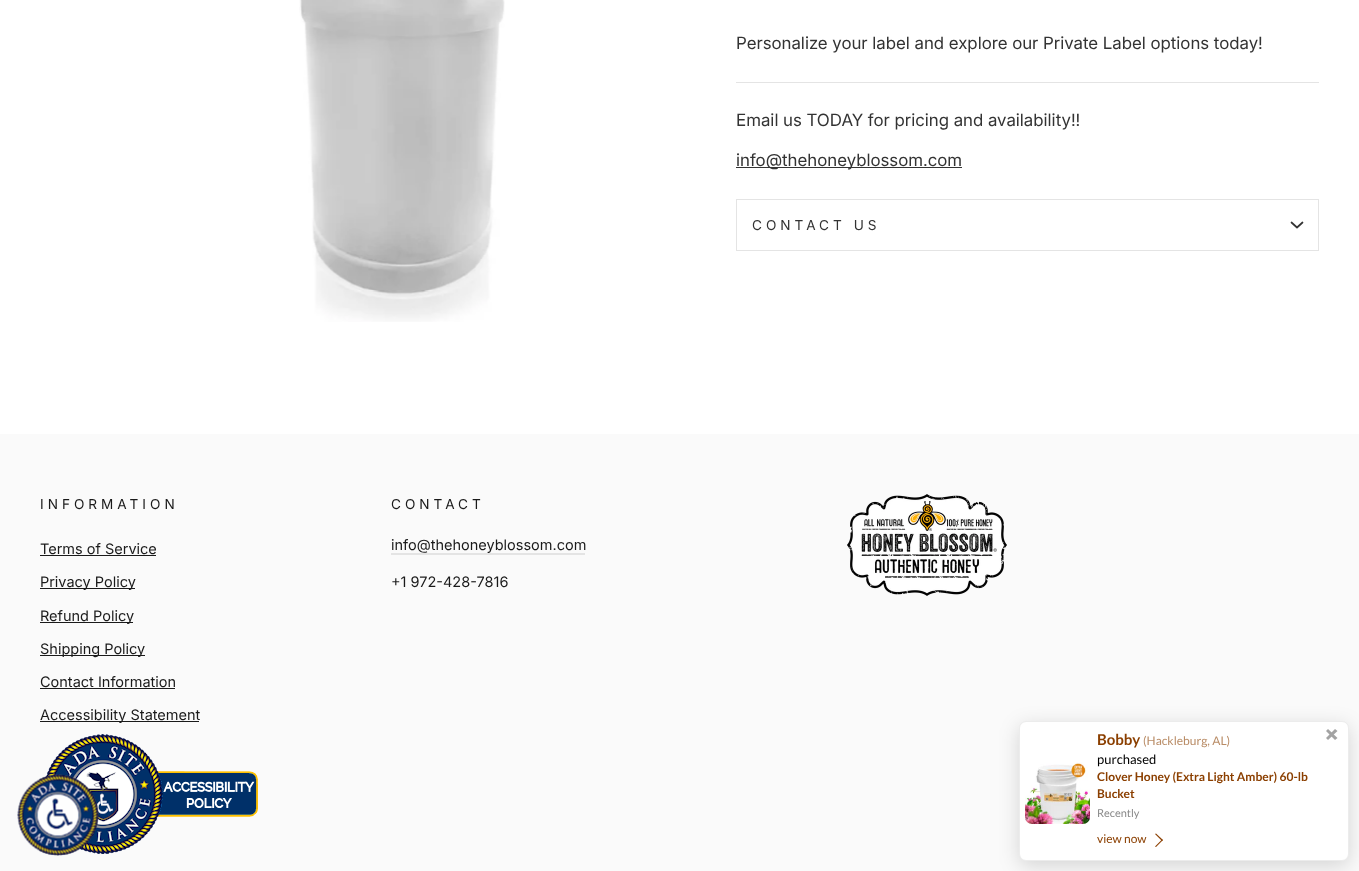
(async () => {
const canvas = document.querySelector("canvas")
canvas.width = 1359
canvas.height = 871
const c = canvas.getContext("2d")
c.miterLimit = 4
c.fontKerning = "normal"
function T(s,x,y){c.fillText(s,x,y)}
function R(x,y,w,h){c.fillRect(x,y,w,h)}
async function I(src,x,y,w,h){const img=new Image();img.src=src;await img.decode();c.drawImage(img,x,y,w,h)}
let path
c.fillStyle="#fff"
R(0,0,1359,871)
await I("1.png",299,0,206,322)
c.font="17px Inter"
c.fillStyle="#333"
T("Personalize your label and explore our Private Label options today!",736,49)
c.fillStyle="#e4e4e4"
R(736,82,583,1)
c.fillStyle="#333"
T("Email us TODAY for pricing and availability!!",736,126)
R(736,167,226,1)
T("info@thehoneyblossom.com",736,166)
c.fillStyle="#e4e4e4"
R(736,250,583,1)
R(736,199,583,1)
R(1318,199,1,51)
R(736,199,1,51)
c.letterSpacing="4px"
c.font="13.6px 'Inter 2'"
c.fillStyle="#333"
T("CONTACT US",752,230)
path = new Path2D("M1291.5 222.5l5.5 5l5.5-5")
c.strokeStyle="#333"
c.lineWidth=1.7
c.lineCap="round"
c.lineJoin="round"
c.stroke(path)
c.fillStyle="#fafafa"
R(0,434,1359,437)
c.fillStyle="#1a1a1a"
T("INFORMATION",40,509)
c.letterSpacing="0px"
c.font="14.5px 'Inter 2'"
T("Terms of Service",40,554)
R(40,555,116,1)
R(40,588,95,1)
T("Privacy Policy",40,587)
R(40,622,93,1)
T("Refund Policy",40,621)
R(40,655,105,1)
T("Shipping Policy",40,654)
T("Contact Information",40,687)
R(40,688,135,1)
R(40,721,159,1)
T("Accessibility Statement",40,720)
c.letterSpacing="4px"
c.font="13.6px 'Inter 2'"
T("CONTACT",391,509)
c.letterSpacing="0px"
c.font="14.5px 'Inter 2'"
T("info@thehoneyblossom.com",391,550)
c.fillStyle="#e4e4e4"
R(391,553,194,2)
c.fillStyle="#1a1a1a"
T("+1 972-428-7816",391,587)
await I("2.png",847,494,160,102)
await I("3.png",39,734,219,121)
await I("4.png",17,774,82,82)
c.fillStyle="#00000026"
c.filter="blur(10px)"
c.beginPath()
c.roundRect(1019,726,330,140,7)
c.fill()
c.filter="none"
c.fillStyle="#fff"
c.beginPath()
c.roundRect(1019.5,721.5,329,139,6.5)
c.fill()
c.strokeStyle="#ececec"
c.lineWidth=1
c.lineJoin="miter"
c.stroke()
await I("5.png",1025,762,65,62)
c.font="bold 15px Lato"
c.fillStyle="#8b3f00"
T("Bobby",1097,745)
c.font="12px Lato"
c.fillStyle="#b98c66"
T("(Hackleburg, AL)",1143,745)
c.font="13px Lato"
c.fillStyle="#000"
T("purchased",1097,764)
c.font="bold 12px Lato"
c.fillStyle="#8b3f00"
T("Clover Honey (Extra Light Amber) 60-lb",1097,781)
T("Bucket",1097,798)
c.font="11px Lato"
c.fillStyle="#888"
T("Recently",1097,817)
c.font="12px Lato"
c.fillStyle="#8b3f00"
T("view now",1097,843)
path = new Path2D("M1156 833.5l7 6.5l-1 1l-7-7z")
c.fill(path)
path = new Path2D("M1162 839.5l1 .5l-7 7l-1-.5z")
c.fill(path)
c.fillStyle="#a3a3a3"
path = new Path2D("M1328 729l9.5 9l-2.5 2l-9-9z")
c.fill(path)
path = new Path2D("M1335 729l2.5 2l-9.5 9l-2-2z")
c.fill(path)
})()
